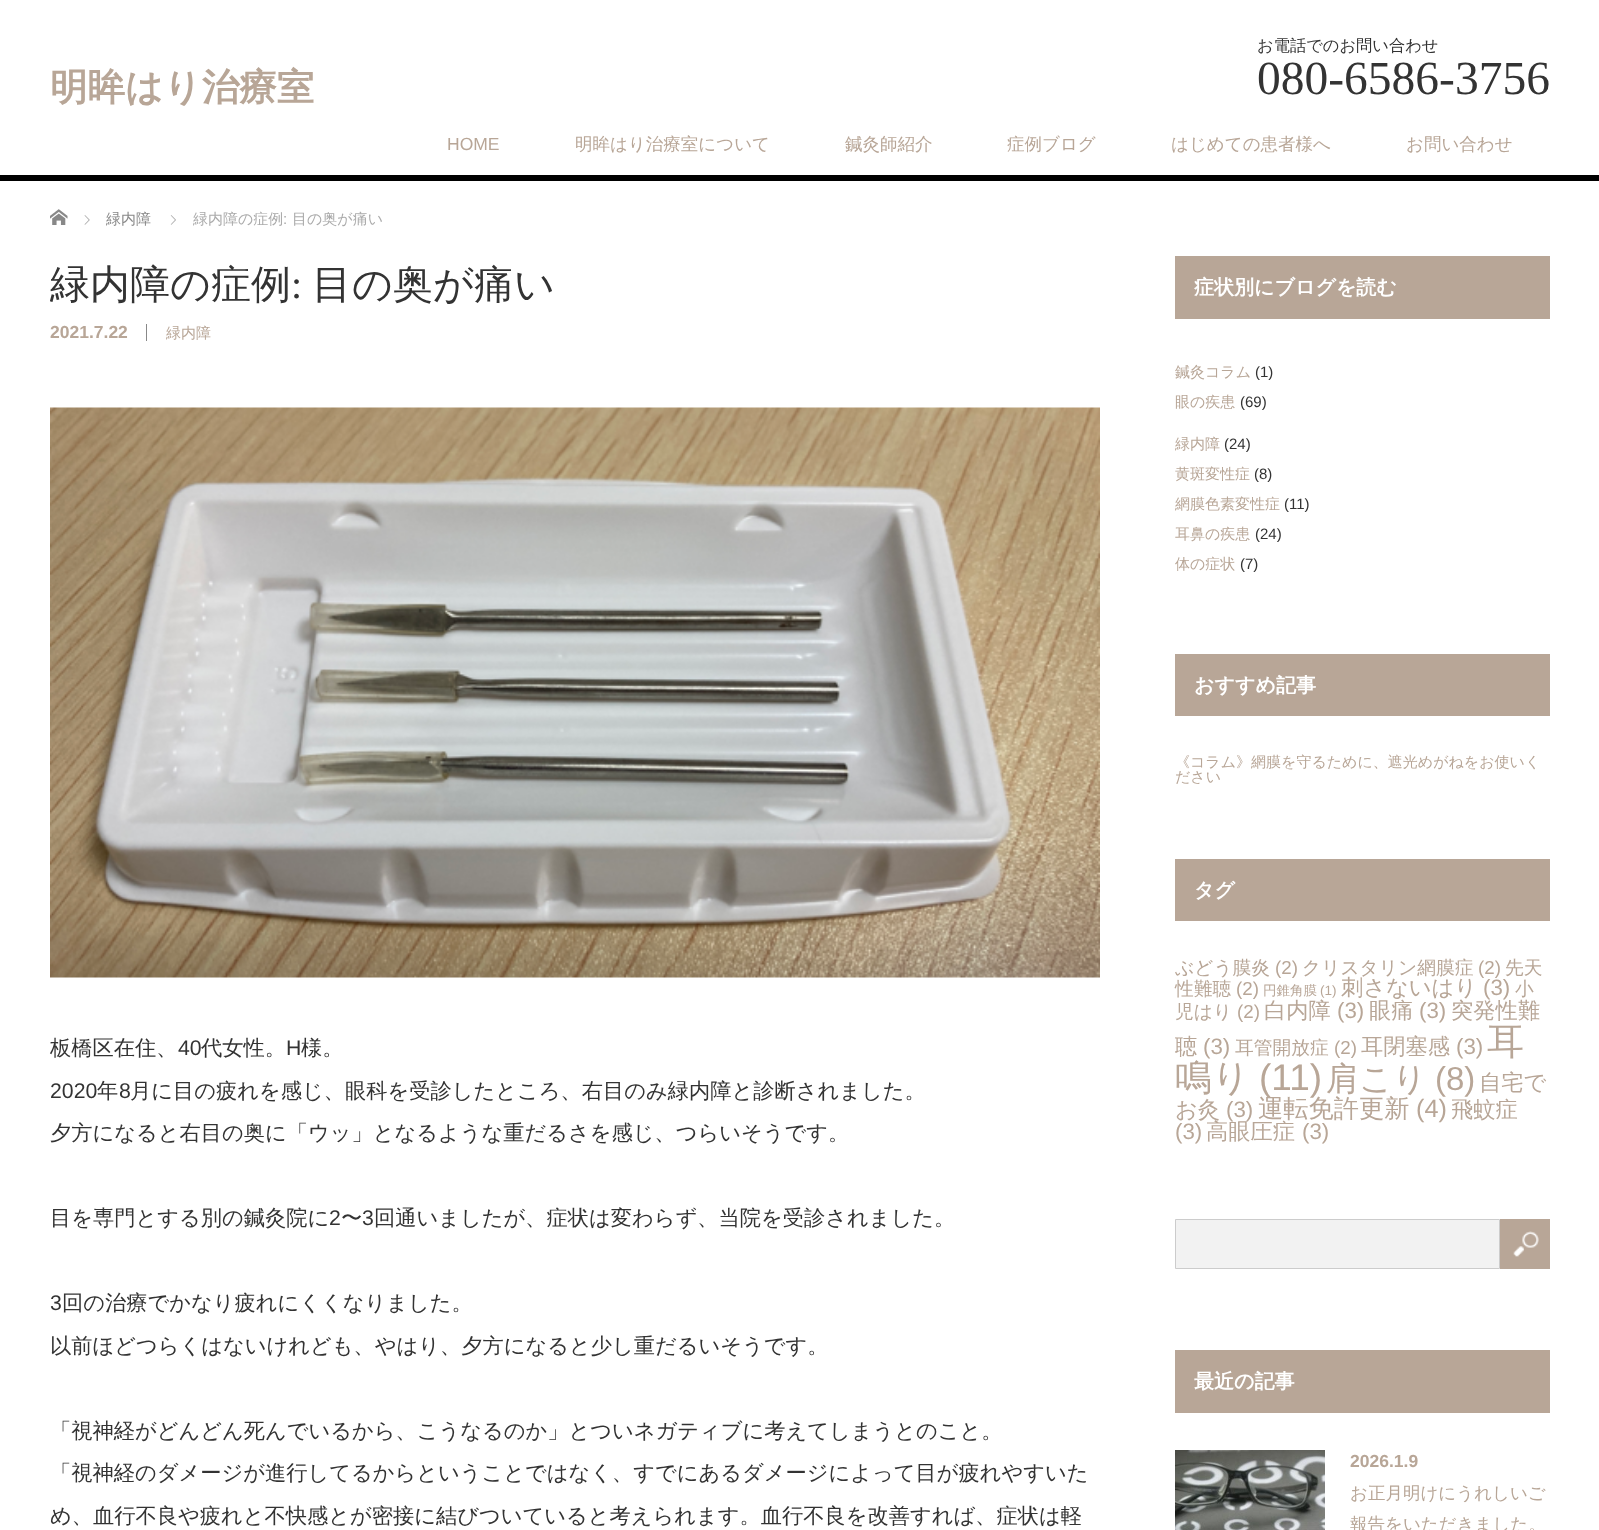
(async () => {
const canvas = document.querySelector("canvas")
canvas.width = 1599
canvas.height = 1530
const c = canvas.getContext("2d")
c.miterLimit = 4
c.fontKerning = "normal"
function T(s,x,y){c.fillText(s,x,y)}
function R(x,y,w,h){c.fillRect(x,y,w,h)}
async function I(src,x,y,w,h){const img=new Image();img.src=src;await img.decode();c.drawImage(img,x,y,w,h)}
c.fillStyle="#fff"
R(0,0,1599,1530)
c.fillStyle="#000"
R(0,175,1599,6)
c.font="bold 37.5px WenQuanYi Zen Hei"
c.fillStyle="#b8a697"
T("明眸はり治療室",50,100)
c.font="500 16.25px WenQuanYi Zen Hei"
c.fillStyle="#333"
T("お電話でのお問い合わせ",1257,51)
c.font="47.5px Liberation Serif"
T("080-6586-3756",1257,94)
c.font="17.5px Liberation Sans"
c.fillStyle="#b8a697"
T("HOME",447,150)
c.font="500 17.5px WenQuanYi Zen Hei"
T("明眸はり治療室について",575,150)
T("鍼灸師紹介",845,150)
T("症例ブログ",1007,150)
T("はじめての患者様へ",1171,150)
T("お問い合わせ",1406,150)
await I("1.png",50,209,18,16)
await I("2.png",84,215,6,10)
c.font="500 15px WenQuanYi Zen Hei"
c.fillStyle="#888"
T("緑内障",106,224)
await I("3.png",170,215,6,10)
c.fillStyle="#aaa"
T("緑内障の症例",193,224)
c.font="15px Liberation Sans"
T(":",283,224)
c.font="500 15px WenQuanYi Zen Hei"
T("目の奥が痛い",292,224)
c.font="500 40px WenQuanYi Zen Hei"
c.fillStyle="#333"
T("緑内障の症例",50,298)
c.font="40px Liberation Serif"
T(":",291,298)
c.font="500 40px WenQuanYi Zen Hei"
T("目の奥が痛い",312,298)
c.font="bold 17.5px Liberation Sans"
c.fillStyle="#b8a697"
T("2021.7.22",50,338)
c.fillStyle="#888"
R(146,324,1,17)
c.font="500 15px WenQuanYi Zen Hei"
c.fillStyle="#b8a697"
T("緑内障",166,338)
await I("4.png",50,407,1050,571)
c.font="500 21.25px WenQuanYi Zen Hei"
c.fillStyle="#333"
T("板橋区在住、",50,1055)
c.font="21.25px Liberation Sans"
T("40",178,1055)
c.font="500 21.25px WenQuanYi Zen Hei"
T("代女性。",201,1055)
c.font="21.25px Liberation Sans"
T("H",286,1055)
c.font="500 21.25px WenQuanYi Zen Hei"
T("様。",301,1055)
c.font="21.25px Liberation Sans"
T("2020",50,1098)
c.font="500 21.25px WenQuanYi Zen Hei"
T("年",97,1098)
c.font="21.25px Liberation Sans"
T("8",119,1098)
c.font="500 21.25px WenQuanYi Zen Hei"
T("月に目の疲れを感じ、眼科を受診したところ、右目のみ緑内障と診断されました。",130,1098)
T("夕方になると右目の奥に「ウッ」となるような重だるさを感じ、つらいそうです。",50,1140)
T("目を専門とする別の鍼灸院に",50,1225)
c.font="21.25px Liberation Sans"
T("2",329,1225)
c.font="500 21.25px WenQuanYi Zen Hei"
T("〜",341,1225)
c.font="21.25px Liberation Sans"
T("3",362,1225)
c.font="500 21.25px WenQuanYi Zen Hei"
T("回通いましたが、症状は変わらず、当院を受診されました。",374,1225)
c.font="21.25px Liberation Sans"
T("3",50,1310)
c.font="500 21.25px WenQuanYi Zen Hei"
T("回の治療でかなり疲れにくくなりました。",62,1310)
T("以前ほどつらくはないけれども、やはり、夕方になると少し重だるいそうです。",50,1353)
T("「視神経がどんどん死んでいるから、こうなるのか」とついネガティブに考えてしまうとのこと。",50,1438)
T("「視神経のダメージが進行してるからということではなく、すでにあるダメージによって目が疲れやすいた",50,1480)
T("め、血行不良や疲れと不快感とが密接に結びついていると考えられます。血行不良を改善すれば、症状は軽",50,1523)
c.fillStyle="#b8a697"
R(1175,256,375,63)
c.font="bold 20px WenQuanYi Zen Hei"
c.fillStyle="#fff"
T("症状別にブログを読む",1194,294)
c.font="500 15px WenQuanYi Zen Hei"
c.fillStyle="#b8a697"
T("鍼灸コラム",1175,377)
c.font="15px Liberation Sans"
c.fillStyle="#333"
T("(1)",1255,377)
c.font="500 15px WenQuanYi Zen Hei"
c.fillStyle="#b8a697"
T("眼の疾患",1175,407)
c.font="15px Liberation Sans"
c.fillStyle="#333"
T("(69)",1240,407)
c.font="500 15px WenQuanYi Zen Hei"
c.fillStyle="#b8a697"
T("緑内障",1175,449)
c.font="15px Liberation Sans"
c.fillStyle="#333"
T("(24)",1224,449)
c.font="500 15px WenQuanYi Zen Hei"
c.fillStyle="#b8a697"
T("黄斑変性症",1175,479)
c.font="15px Liberation Sans"
c.fillStyle="#333"
T("(8)",1254,479)
c.font="500 15px WenQuanYi Zen Hei"
c.fillStyle="#b8a697"
T("網膜色素変性症",1175,509)
c.font="15px Liberation Sans"
c.fillStyle="#333"
T("(11)",1284,509)
c.font="500 15px WenQuanYi Zen Hei"
c.fillStyle="#b8a697"
T("耳鼻の疾患",1175,539)
c.font="15px Liberation Sans"
c.fillStyle="#333"
T("(24)",1255,539)
c.font="500 15px WenQuanYi Zen Hei"
c.fillStyle="#b8a697"
T("体の症状",1175,569)
c.font="15px Liberation Sans"
c.fillStyle="#333"
T("(7)",1240,569)
c.fillStyle="#b8a697"
R(1175,654,375,62)
c.font="bold 20px WenQuanYi Zen Hei"
c.fillStyle="#fff"
T("おすすめ記事",1194,692)
c.font="500 15px WenQuanYi Zen Hei"
c.fillStyle="#b8a697"
T("《コラム》網膜を守るために、遮光めがねをお使いく",1175,767)
T("ださい",1175,782)
R(1175,859,375,62)
c.font="bold 20px WenQuanYi Zen Hei"
c.fillStyle="#fff"
T("タグ",1194,897)
c.font="500 18.75px WenQuanYi Zen Hei"
c.fillStyle="#b8a697"
T("ぶどう膜炎",1175,974)
c.font="18.75px Liberation Sans"
T("(2)",1275,974)
c.font="500 18.75px WenQuanYi Zen Hei"
T("クリスタリン網膜症",1302,974)
c.font="18.75px Liberation Sans"
T("(2)",1478,974)
c.font="500 18.75px WenQuanYi Zen Hei"
T("先天",1505,974)
T("性難聴",1175,995)
c.font="18.75px Liberation Sans"
T("(2)",1236,995)
c.font="500 13.5px WenQuanYi Zen Hei"
T("円錐角膜",1263,995)
c.font="13.5px Liberation Sans"
T("(1)",1320,995)
c.font="500 22.25px WenQuanYi Zen Hei"
T("刺さないはり",1341,995)
c.font="22.25px Liberation Sans"
T("(3)",1483,995)
c.font="500 18.75px WenQuanYi Zen Hei"
T("小",1515,995)
T("児はり",1175,1018)
c.font="18.75px Liberation Sans"
T("(2)",1237,1018)
c.font="500 22.25px WenQuanYi Zen Hei"
T("白内障",1264,1018)
c.font="22.25px Liberation Sans"
T("(3)",1337,1018)
c.font="500 22.25px WenQuanYi Zen Hei"
T("眼痛",1369,1018)
c.font="22.25px Liberation Sans"
T("(3)",1419,1018)
c.font="500 22.25px WenQuanYi Zen Hei"
T("突発性難",1451,1018)
T("聴",1175,1054)
c.font="22.25px Liberation Sans"
T("(3)",1203,1054)
c.font="500 18.75px WenQuanYi Zen Hei"
T("耳管開放症",1235,1054)
c.font="18.75px Liberation Sans"
T("(2)",1334,1054)
c.font="500 22.25px WenQuanYi Zen Hei"
T("耳閉塞感",1361,1054)
c.font="22.25px Liberation Sans"
T("(3)",1456,1054)
c.font="500 37px WenQuanYi Zen Hei"
T("耳",1487,1054)
T("鳴り",1175,1090)
c.font="37px Liberation Sans"
T("(11)",1259,1090)
c.font="500 33px WenQuanYi Zen Hei"
T("肩こり",1326,1090)
c.font="33px Liberation Sans"
T("(8)",1435,1090)
c.font="500 22.25px WenQuanYi Zen Hei"
T("自宅で",1479,1090)
T("お灸",1175,1117)
c.font="22.25px Liberation Sans"
T("(3)",1226,1117)
c.font="500 25.25px WenQuanYi Zen Hei"
T("運転免許更新",1258,1117)
c.font="25.25px Liberation Sans"
T("(4)",1416,1117)
c.font="500 22.25px WenQuanYi Zen Hei"
T("飛蚊症",1451,1117)
c.font="22.25px Liberation Sans"
T("(3)",1175,1139)
c.font="500 22.25px WenQuanYi Zen Hei"
T("高眼圧症",1206,1139)
c.font="22.25px Liberation Sans"
T("(3)",1302,1139)
c.fillStyle="#f2f2f2"
c.beginPath()
c.rect(1175.5,1219.5,324,49)
c.fill()
c.strokeStyle="#ccc"
c.stroke()
c.fillStyle="#b8a697"
R(1500,1219,50,50)
await I("5.png",1513,1231,26,26)
R(1175,1350,375,63)
c.font="bold 20px WenQuanYi Zen Hei"
c.fillStyle="#fff"
T("最近の記事",1194,1388)
await I("6.png",1175,1450,150,80)
c.font="bold 17.5px Liberation Sans"
c.fillStyle="#b8a697"
T("2026.1.9",1350,1467)
c.font="500 17.5px WenQuanYi Zen Hei"
T("お正月明けにうれしいご",1350,1499)
T("報告をいただきました。",1350,1530)
})()
